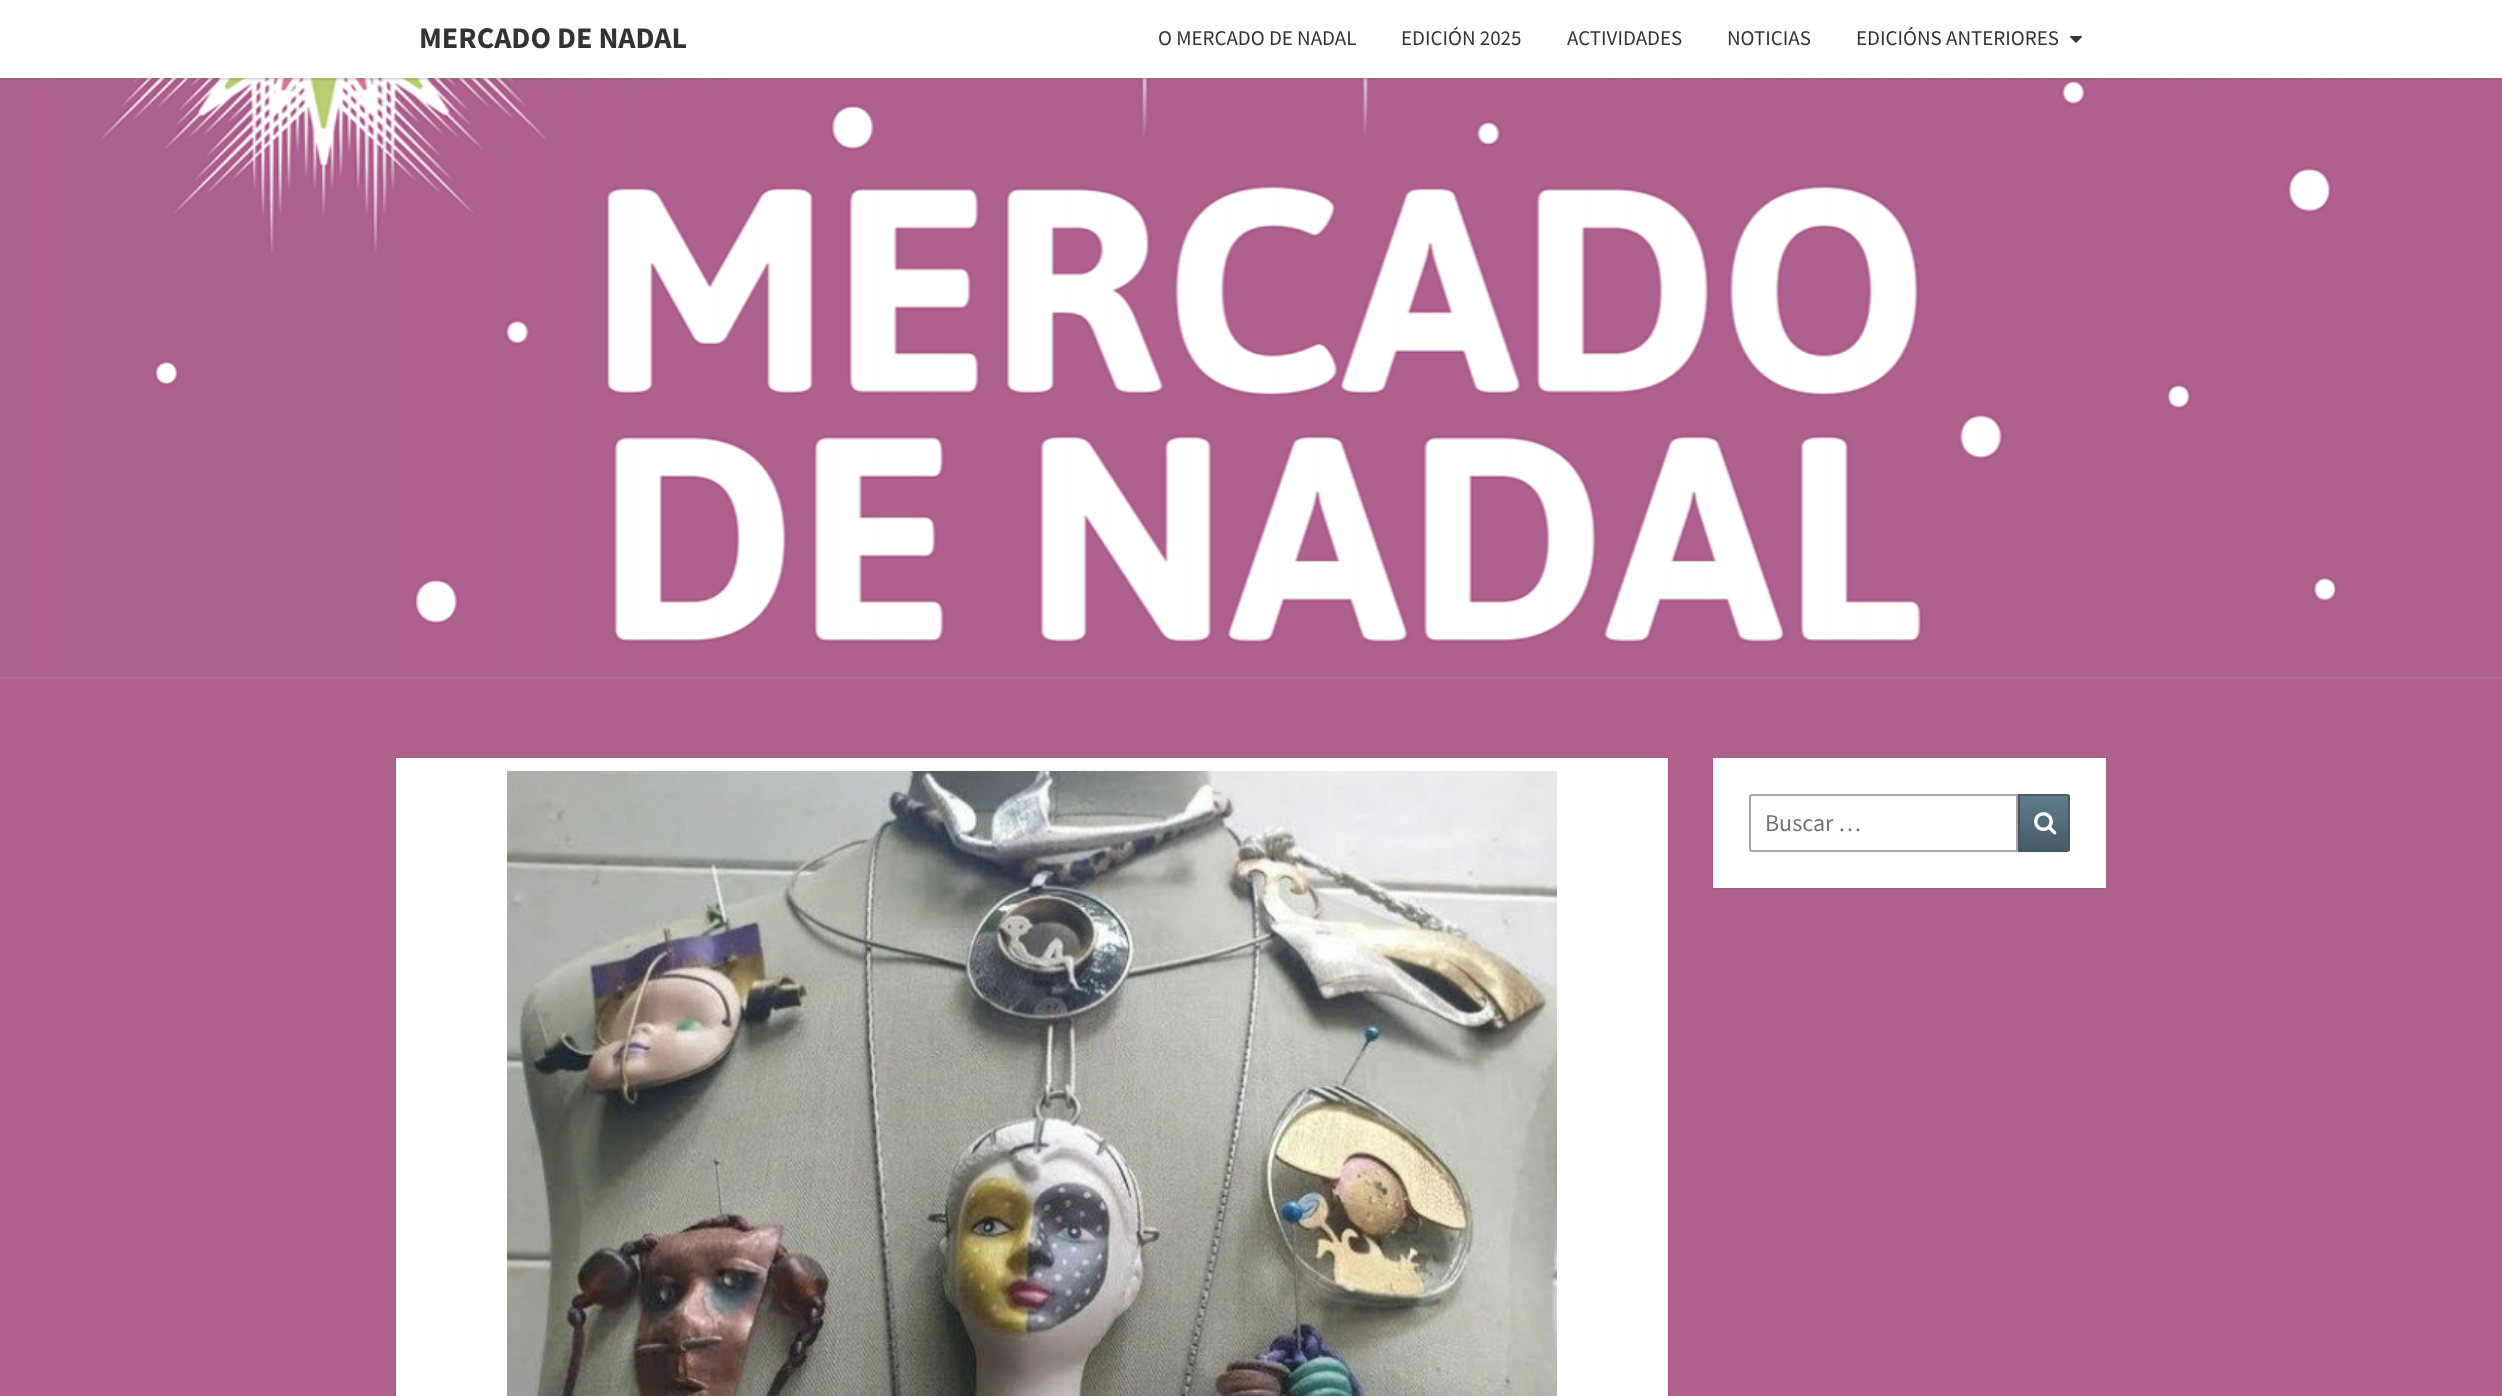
(async () => {
const canvas = document.querySelector("canvas")
canvas.width = 2502
canvas.height = 1396
const c = canvas.getContext("2d")
c.miterLimit = 4
c.fontKerning = "normal"
function T(s,x,y){c.fillText(s,x,y)}
function R(x,y,w,h){c.fillRect(x,y,w,h)}
async function I(src,x,y,w,h){const img=new Image();img.src=src;await img.decode();c.drawImage(img,x,y,w,h)}
let gradient, path
c.fillStyle="#ae618f"
R(0,0,2502,1396)
c.save()
path = new Path2D("M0 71h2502v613h-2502zm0 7h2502v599h-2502z")
c.clip(path,"evenodd")
c.fillStyle="#b6b6b64d"
c.filter="blur(1.5px)"
c.beginPath()
c.rect(-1,77,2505,601)
c.fill()
c.filter="none"
c.restore()
await I("2.png",0,78,2502,599)
c.fillStyle="#64646433"
c.filter="blur(1px)"
c.beginPath()
c.rect(0,2,2502,78)
c.fill()
c.filter="none"
c.fillStyle="#fff"
R(0,0,2502,78)
c.font="bold 30px Source Sans Pro"
c.fillStyle="#333"
T("MERCADO DE NADAL",419,48)
c.font="21px Source Sans Pro"
T("O MERCADO DE NADAL",1158,45)
T("EDICIÓN 2025",1401,45)
T("ACTIVIDADES",1567,45)
T("NOTICIAS",1727,45)
T("EDICIÓNS ANTERIORES",1856,45)
await I("1.png",2070,36,12,7)
c.fillStyle="#00000026"
c.filter="blur(1px)"
c.beginPath()
c.rect(396,758,1272,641)
c.fill()
c.filter="none"
c.fillStyle="#fff"
R(396,758,1272,638)
await I("3.png",507,771,1050,625)
c.fillStyle="#00000026"
c.filter="blur(1px)"
c.beginPath()
c.rect(1713,758,393,130)
c.fill()
c.filter="none"
c.fillStyle="#fff"
R(1713,758,393,130)
c.beginPath()
c.roundRect(1750,795,267,56,[2,0,0,2])
c.strokeStyle="#aaa1a8"
c.lineWidth=2
c.stroke()
c.font="24px Source Sans Pro"
c.fillStyle="#757575"
T("Buscar …",1765,831)
c.save()
c.beginPath()
c.roundRect(2018,794,52,58,[0,3,3,0])
c.clip()
gradient = c.createLinearGradient(2044,795,2044,851)
gradient.addColorStop(0,"#607d8b")
gradient.addColorStop(1,"#455a64")
c.fillStyle = gradient
R(2020,795,50,56)
c.restore()
c.beginPath()
c.roundRect(2019,795,50,56,[0,2,2,0])
c.strokeStyle="#455a64"
c.stroke()
await I("4.png",2034,812,23,23)
})()
